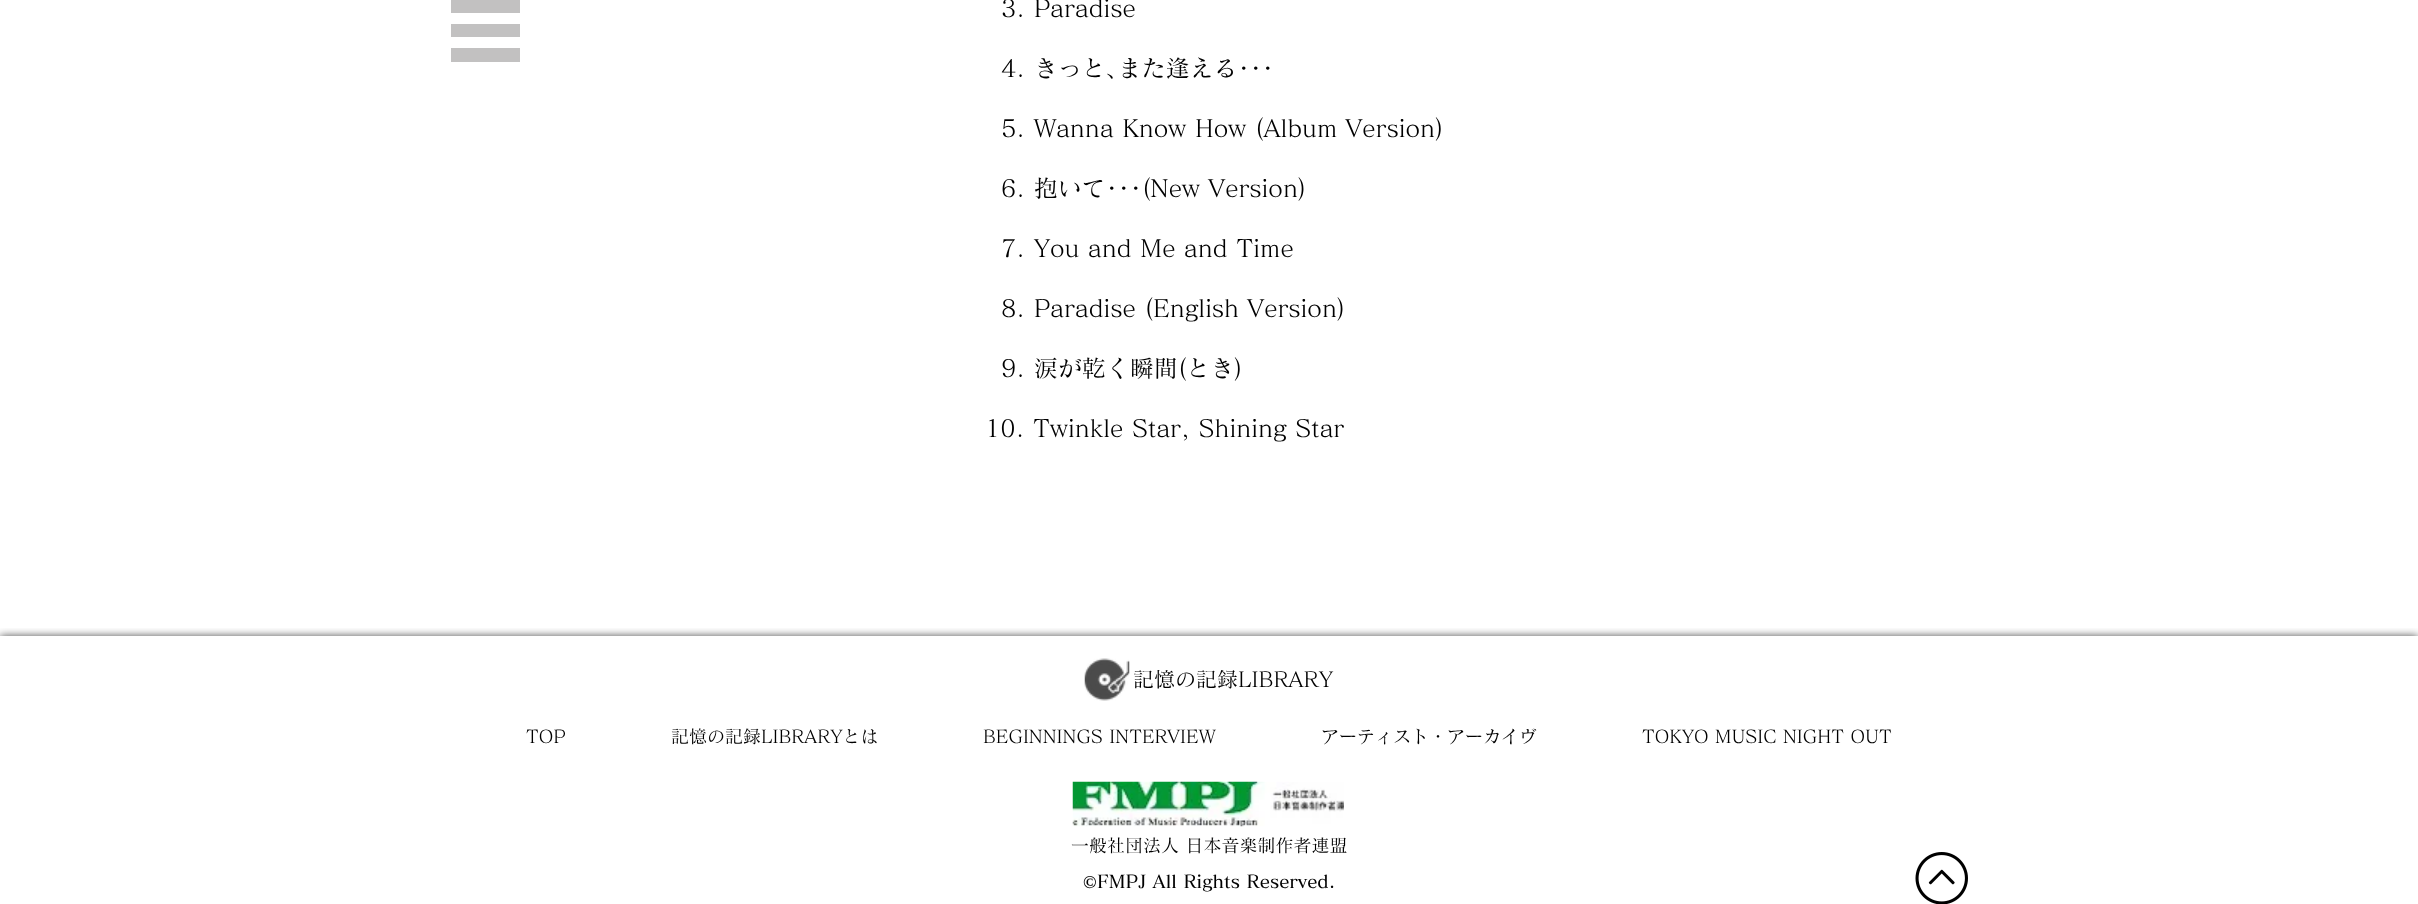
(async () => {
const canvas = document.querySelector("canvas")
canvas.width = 2418
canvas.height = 904
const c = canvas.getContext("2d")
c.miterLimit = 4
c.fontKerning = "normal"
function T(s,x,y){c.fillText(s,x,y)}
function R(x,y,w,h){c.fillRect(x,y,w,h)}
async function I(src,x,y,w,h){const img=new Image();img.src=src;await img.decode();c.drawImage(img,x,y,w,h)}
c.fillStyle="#fff"
R(0,0,2418,904)
c.fillStyle="#c2c1c1"
R(451,0,69,13)
R(451,24,69,13)
R(451,48,69,14)
c.font="500 24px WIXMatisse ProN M"
c.fillStyle="#000"
T("3. Paradise",1001,17)
T("4. きっと､また逢える･･･",1001,77)
T("5. Wanna Know How (Album Version)",1001,137)
T("6. 抱いて･･･(New Version)",1001,197)
T("7. You and Me and Time",1001,257)
T("8. Paradise (English Version)",1001,317)
T("9. 涙が乾く瞬間(とき)",1001,377)
T("10. Twinkle Star, Shining Star",985,437)
c.save()
c.beginPath()
c.rect(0,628,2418,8)
c.clip()
c.fillStyle="#000000b3"
c.filter="blur(4px)"
c.beginPath()
c.rect(0,636,2418,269)
c.fill()
c.filter="none"
c.restore()
await I("1.png",1084,658,46,43)
c.font="500 21px WIXMatisse ProN M"
T("記憶の記録LIBRARY",1133,687)
c.font="500 18px WIXMatisse ProN M"
T("TOP",526,743)
T("記憶の記録LIBRARYとは",671,743)
T("BEGINNINGS INTERVIEW",983,743)
T("アーティスト・アーカイヴ",1321,743)
T("TOKYO MUSIC NIGHT OUT",1642,743)
await I("2.png",1072,781,272,46)
T("一般社団法人 日本音楽制作者連盟",1071,852)
c.font="bold 18px Liberation Serif"
T("©",1083,888)
c.font="600 18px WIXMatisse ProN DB"
T("FMPJ All Rights Reserved.",1097,888)
await I("3.png",1915,852,53,52)
})()
